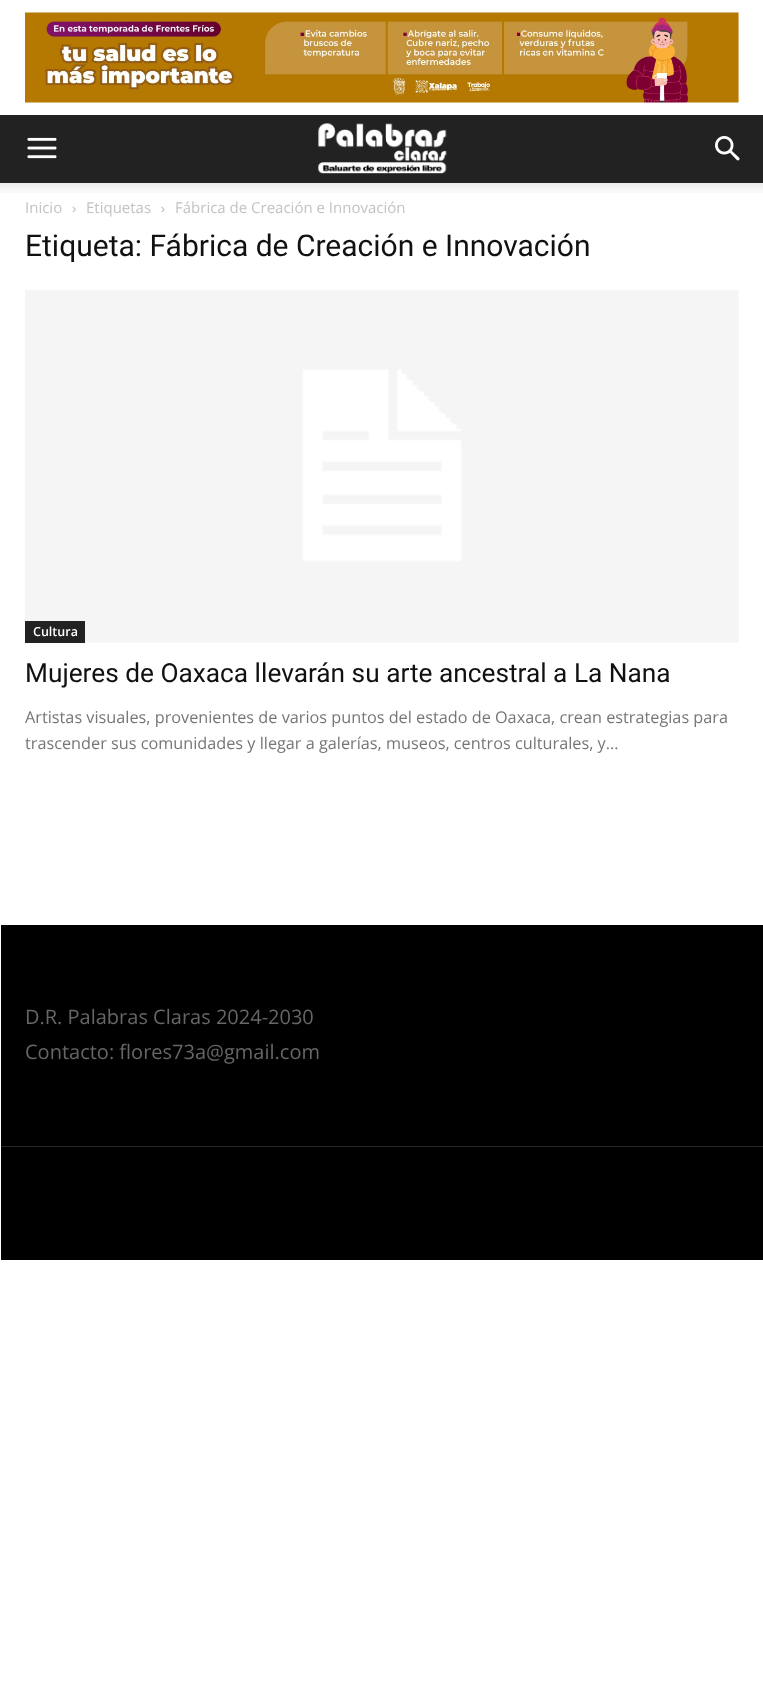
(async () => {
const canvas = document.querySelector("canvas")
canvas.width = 763
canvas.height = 1708
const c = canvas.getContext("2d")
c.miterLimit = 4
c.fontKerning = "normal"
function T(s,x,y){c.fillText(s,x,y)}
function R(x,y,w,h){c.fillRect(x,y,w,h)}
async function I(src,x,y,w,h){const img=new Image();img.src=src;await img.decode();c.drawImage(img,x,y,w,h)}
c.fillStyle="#fff"
R(0,0,763,1708)
await I("1.png",25,12,714,91)
c.fillStyle="#222"
R(0,115,763,68)
await I("2.png",27,137,30,22)
await I("3.png",318,123,129,51)
await I("4.png",715,136,25,25)
await I("5.png",0,183,763,10)
c.font="15px Open Sans"
c.fillStyle="#c3c3c3"
T("Inicio",25,213)
await I("6.png",72,206,4,7)
T("Etiquetas",86,213)
await I("7.png",161,206,4,7)
T("Fábrica de Creación e Innovación",175,213)
c.font="30px Roboto"
c.fillStyle="#111"
T("Etiqueta: Fábrica de Creación e Innovación",25,256)
await I("8.png",25,290,714,353)
c.fillStyle="#222"
R(25,621,60,22)
c.font="600 12.5px Open Sans"
c.fillStyle="#fff"
T("Cultura",33,636)
c.font="26.25px Roboto"
c.fillStyle="#111"
T("Mujeres de Oaxaca llevarán su arte ancestral a La Nana",25,682)
c.font="16.25px Open Sans"
c.fillStyle="#767676"
T("Artistas visuales, provenientes de varios puntos del estado de Oaxaca, crean estrategias para",25,723)
T("trascender sus comunidades y llegar a galerías, museos, centros culturales, y...",25,749)
c.fillStyle="#000"
R(1,925,762,221)
c.font="20px Open Sans"
c.fillStyle="#666"
T("D.R. Palabras Claras 2024-2030",25,1024)
T("Contacto: flores73a@gmail.com",25,1059)
c.fillStyle="#000"
R(1,1147,762,113)
c.fillStyle="#262626"
R(1,1146,762,1)
})()
